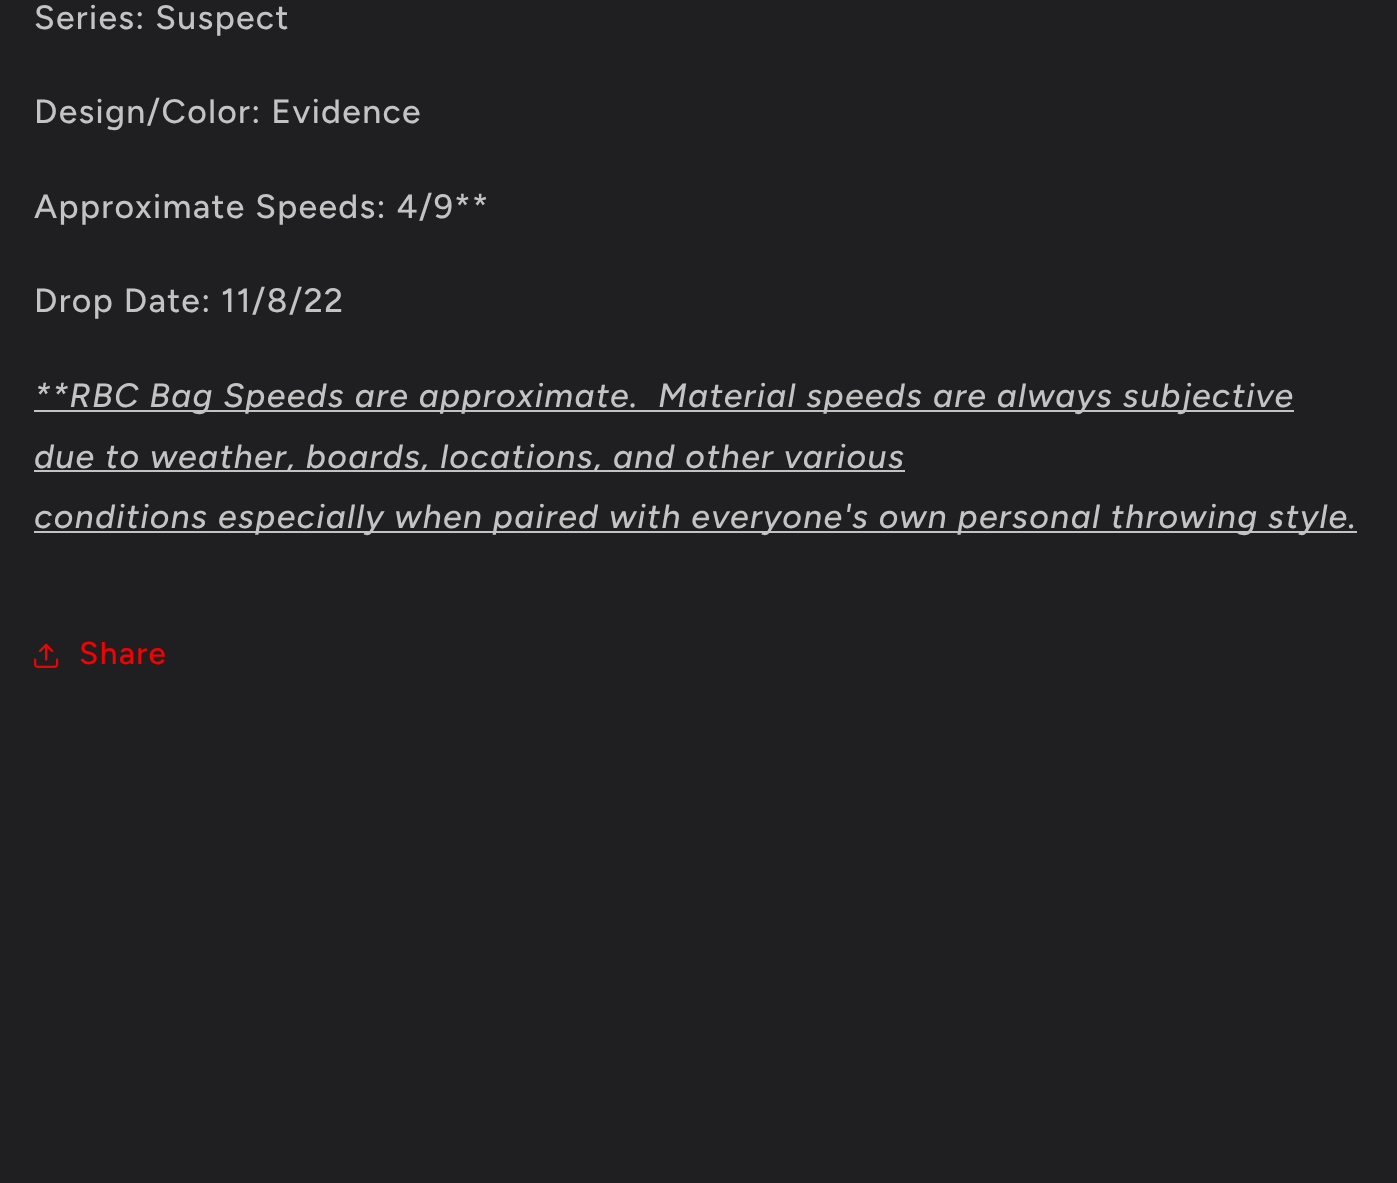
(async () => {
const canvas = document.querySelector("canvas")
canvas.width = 1397
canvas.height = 1183
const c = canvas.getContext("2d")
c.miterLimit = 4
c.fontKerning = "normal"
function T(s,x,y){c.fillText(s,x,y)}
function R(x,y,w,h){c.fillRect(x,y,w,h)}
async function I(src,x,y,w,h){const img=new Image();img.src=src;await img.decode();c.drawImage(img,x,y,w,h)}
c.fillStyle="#1f1f21"
R(0,0,1397,1183)
c.letterSpacing="1.35px"
c.font="500 33.75px Figtree"
c.fillStyle="#c3c3c4"
T("Series: Suspect",34,29)
T("Design/Color: Evidence",34,123)
T("Approximate Speeds: 4/9**",34,218)
T("Drop Date: 11/8/22",34,312)
R(34,410,1260,2)
c.font="italic 500 33.75px Figtree"
T("**RBC Bag Speeds are approximate.  Material speeds are always subjective",34,407)
R(34,470,871,2)
T("due to weather, boards, locations, and other various",34,468)
R(34,531,1323,2)
T("conditions especially when paired with everyone's own personal throwing style.",34,528)
await I("1.png",34,643,25,25)
c.font="500 31.5px Figtree"
c.fillStyle="#f00303"
T("Share",79,664)
})()
